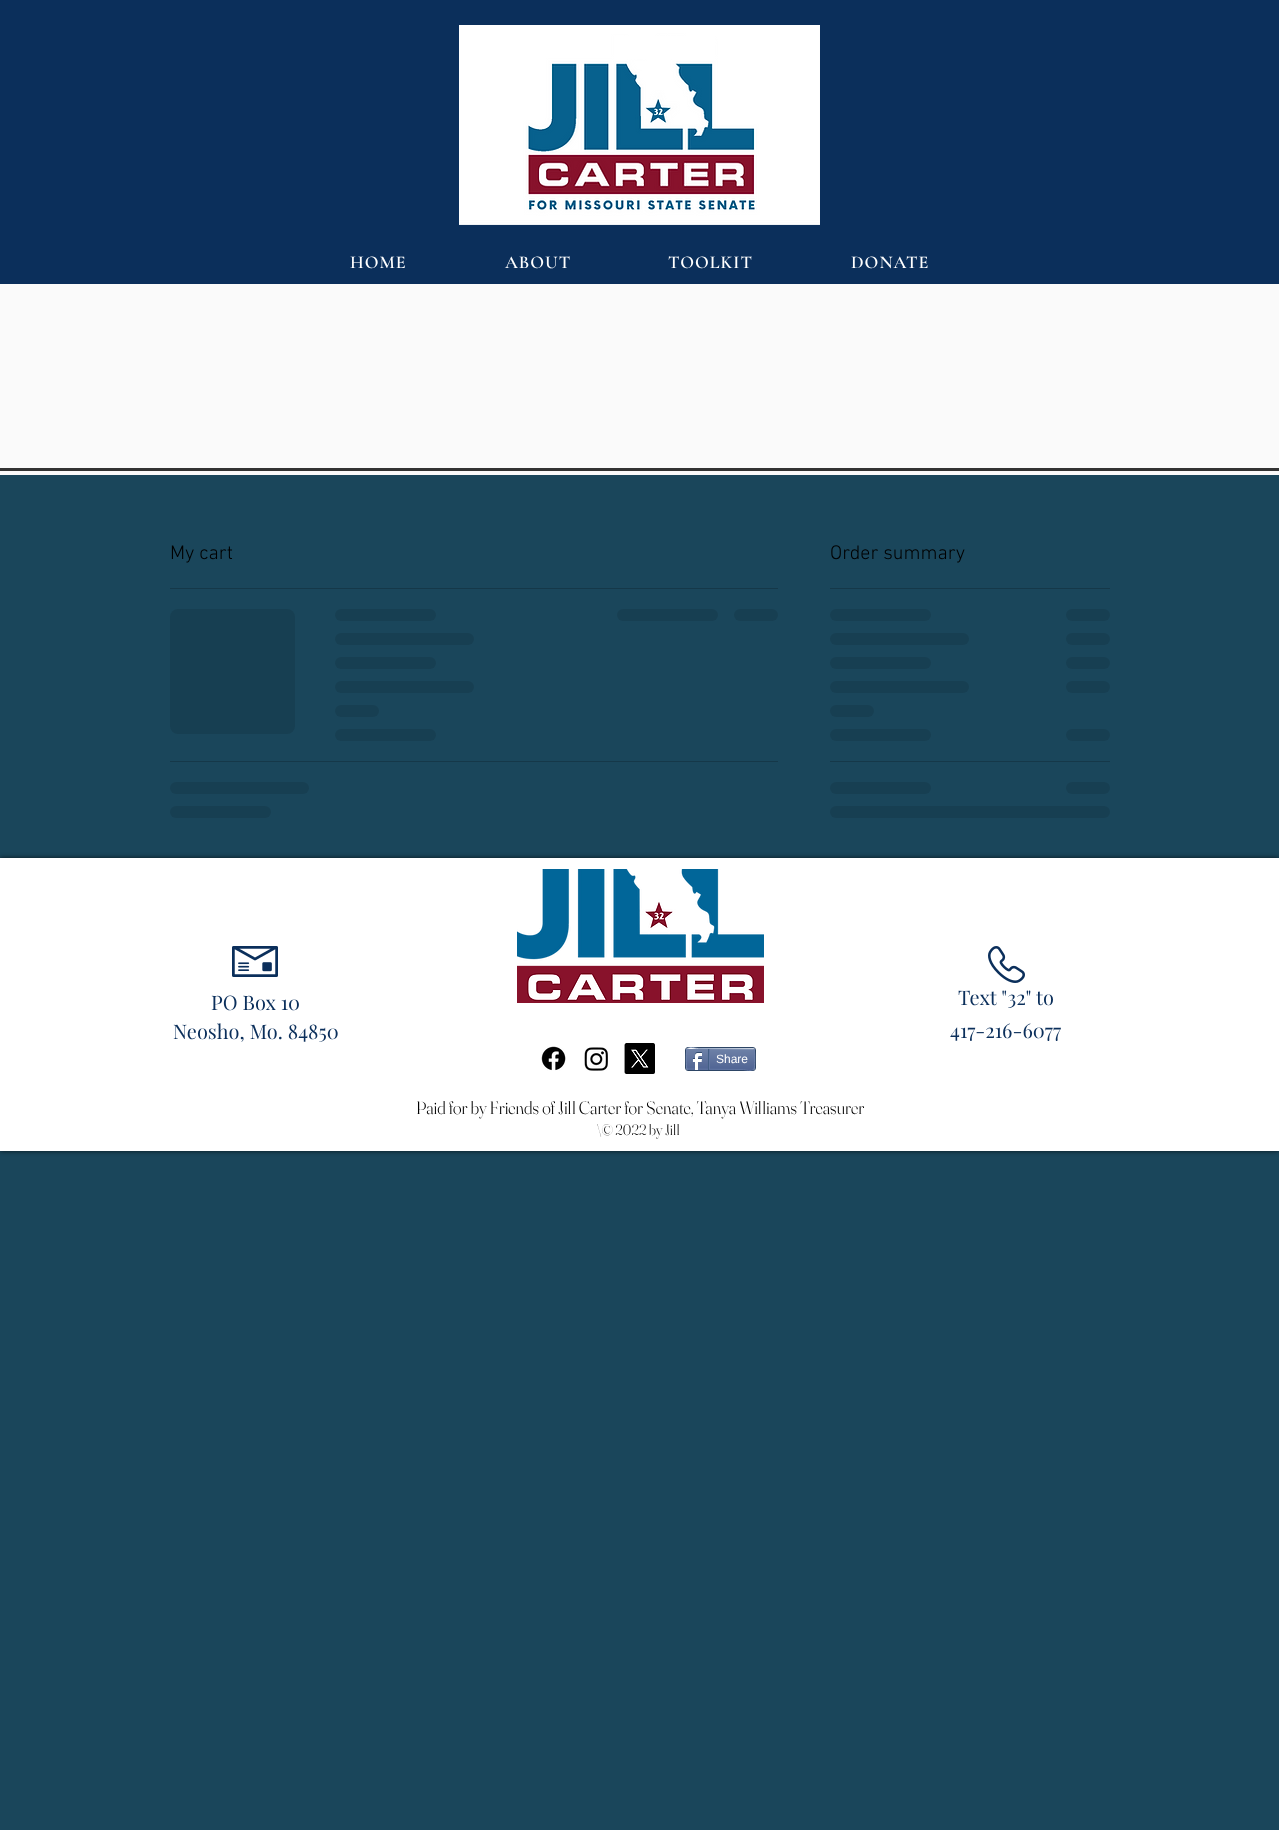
(async () => {
const canvas = document.querySelector("canvas")
canvas.width = 1279
canvas.height = 1830
const c = canvas.getContext("2d")
c.miterLimit = 4
c.fontKerning = "normal"
function T(s,x,y){c.fillText(s,x,y)}
function R(x,y,w,h){c.fillRect(x,y,w,h)}
function Q(x,y,w,h,r){c.beginPath();c.roundRect(x,y,w,h,r);c.fill()}
async function I(src,x,y,w,h){const img=new Image();img.src=src;await img.decode();c.drawImage(img,x,y,w,h)}
let gradient, path
c.fillStyle="#1a465b"
R(0,0,1279,1830)
c.fillStyle="#0b2f5b"
R(0,0,1279,284)
await I("1.png",459,25,361,200)
c.fillStyle="#fff"
R(614,36,101,23)
c.letterSpacing="1px"
c.font="600 18px Cormorant Garamond"
T("HOME",350,268)
T("ABOUT",505,268)
T("TOOLKIT",668,268)
T("DONATE",851,268)
c.fillStyle="#fafafa"
R(0,284,1279,191)
c.fillStyle="#333"
R(0,468,1279,3)
c.fillStyle="#153849"
R(170,588,608,1)
c.letterSpacing="0px"
c.font="300 20px 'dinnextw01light'"
c.fillStyle="#000"
T("My cart",170,559)
gradient = c.createLinearGradient(170,672,670,672)
gradient.addColorStop(.25,"#173f52")
gradient.addColorStop(.37,"#153849")
gradient.addColorStop(.63,"#173f52")
c.fillStyle = gradient
Q(170,609,125,125,8)
gradient = c.createLinearGradient(335,615,739,615)
gradient.addColorStop(.25,"#173f52")
gradient.addColorStop(.37,"#153849")
gradient.addColorStop(.63,"#173f52")
c.fillStyle = gradient
Q(335,609,101,12,6)
gradient = c.createLinearGradient(335,639,891,639)
gradient.addColorStop(.25,"#173f52")
gradient.addColorStop(.37,"#153849")
gradient.addColorStop(.63,"#173f52")
c.fillStyle = gradient
Q(335,633,139,12,6)
gradient = c.createLinearGradient(335,663,739,663)
gradient.addColorStop(.25,"#173f52")
gradient.addColorStop(.37,"#153849")
gradient.addColorStop(.63,"#173f52")
c.fillStyle = gradient
Q(335,657,101,12,6)
gradient = c.createLinearGradient(335,687,891,687)
gradient.addColorStop(.25,"#173f52")
gradient.addColorStop(.37,"#153849")
gradient.addColorStop(.63,"#173f52")
c.fillStyle = gradient
Q(335,681,139,12,6)
gradient = c.createLinearGradient(335,711,511,711)
gradient.addColorStop(.25,"#173f52")
gradient.addColorStop(.37,"#153849")
gradient.addColorStop(.63,"#173f52")
c.fillStyle = gradient
Q(335,705,44,12,6)
gradient = c.createLinearGradient(335,735,739,735)
gradient.addColorStop(.25,"#173f52")
gradient.addColorStop(.37,"#153849")
gradient.addColorStop(.63,"#173f52")
c.fillStyle = gradient
Q(335,729,101,12,6)
gradient = c.createLinearGradient(617,615,1021,615)
gradient.addColorStop(.25,"#173f52")
gradient.addColorStop(.37,"#153849")
gradient.addColorStop(.63,"#173f52")
c.fillStyle = gradient
Q(617,609,101,12,6)
gradient = c.createLinearGradient(734,615,910,615)
gradient.addColorStop(.25,"#173f52")
gradient.addColorStop(.37,"#153849")
gradient.addColorStop(.63,"#173f52")
c.fillStyle = gradient
Q(734,609,44,12,6)
c.fillStyle="#153849"
R(170,761,608,1)
gradient = c.createLinearGradient(170,788,726,788)
gradient.addColorStop(.25,"#173f52")
gradient.addColorStop(.37,"#153849")
gradient.addColorStop(.63,"#173f52")
c.fillStyle = gradient
Q(170,782,139,12,6)
gradient = c.createLinearGradient(170,812,574,812)
gradient.addColorStop(.25,"#173f52")
gradient.addColorStop(.37,"#153849")
gradient.addColorStop(.63,"#173f52")
c.fillStyle = gradient
Q(170,806,101,12,6)
c.fillStyle="#153849"
R(830,588,280,1)
c.fillStyle="#000"
T("Order summary",830,559)
gradient = c.createLinearGradient(830,615,1234,615)
gradient.addColorStop(.25,"#173f52")
gradient.addColorStop(.37,"#153849")
gradient.addColorStop(.63,"#173f52")
c.fillStyle = gradient
Q(830,609,101,12,6)
gradient = c.createLinearGradient(1066,615,1242,615)
gradient.addColorStop(.25,"#173f52")
gradient.addColorStop(.37,"#153849")
gradient.addColorStop(.63,"#173f52")
c.fillStyle = gradient
Q(1066,609,44,12,6)
gradient = c.createLinearGradient(830,639,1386,639)
gradient.addColorStop(.25,"#173f52")
gradient.addColorStop(.37,"#153849")
gradient.addColorStop(.63,"#173f52")
c.fillStyle = gradient
Q(830,633,139,12,6)
gradient = c.createLinearGradient(1066,639,1242,639)
gradient.addColorStop(.25,"#173f52")
gradient.addColorStop(.37,"#153849")
gradient.addColorStop(.63,"#173f52")
c.fillStyle = gradient
Q(1066,633,44,12,6)
gradient = c.createLinearGradient(830,663,1234,663)
gradient.addColorStop(.25,"#173f52")
gradient.addColorStop(.37,"#153849")
gradient.addColorStop(.63,"#173f52")
c.fillStyle = gradient
Q(830,657,101,12,6)
gradient = c.createLinearGradient(1066,663,1242,663)
gradient.addColorStop(.25,"#173f52")
gradient.addColorStop(.37,"#153849")
gradient.addColorStop(.63,"#173f52")
c.fillStyle = gradient
Q(1066,657,44,12,6)
gradient = c.createLinearGradient(830,687,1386,687)
gradient.addColorStop(.25,"#173f52")
gradient.addColorStop(.37,"#153849")
gradient.addColorStop(.63,"#173f52")
c.fillStyle = gradient
Q(830,681,139,12,6)
gradient = c.createLinearGradient(1066,687,1242,687)
gradient.addColorStop(.25,"#173f52")
gradient.addColorStop(.37,"#153849")
gradient.addColorStop(.63,"#173f52")
c.fillStyle = gradient
Q(1066,681,44,12,6)
gradient = c.createLinearGradient(830,711,1006,711)
gradient.addColorStop(.25,"#173f52")
gradient.addColorStop(.37,"#153849")
gradient.addColorStop(.63,"#173f52")
c.fillStyle = gradient
Q(830,705,44,12,6)
gradient = c.createLinearGradient(830,735,1234,735)
gradient.addColorStop(.25,"#173f52")
gradient.addColorStop(.37,"#153849")
gradient.addColorStop(.63,"#173f52")
c.fillStyle = gradient
Q(830,729,101,12,6)
gradient = c.createLinearGradient(1066,735,1242,735)
gradient.addColorStop(.25,"#173f52")
gradient.addColorStop(.37,"#153849")
gradient.addColorStop(.63,"#173f52")
c.fillStyle = gradient
Q(1066,729,44,12,6)
c.fillStyle="#153849"
R(830,761,280,1)
gradient = c.createLinearGradient(830,788,1234,788)
gradient.addColorStop(.25,"#173f52")
gradient.addColorStop(.37,"#153849")
gradient.addColorStop(.63,"#173f52")
c.fillStyle = gradient
Q(830,782,101,12,6)
gradient = c.createLinearGradient(1066,788,1242,788)
gradient.addColorStop(.25,"#173f52")
gradient.addColorStop(.37,"#153849")
gradient.addColorStop(.63,"#173f52")
c.fillStyle = gradient
Q(1066,782,44,12,6)
gradient = c.createLinearGradient(830,812,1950,812)
gradient.addColorStop(.25,"#173f52")
gradient.addColorStop(.37,"#153849")
gradient.addColorStop(.63,"#173f52")
c.fillStyle = gradient
Q(830,806,280,12,6)
c.fillStyle="#000000b3"
c.filter="blur(2.5px)"
c.beginPath()
c.rect(0,858,1279,293)
c.fill()
c.filter="none"
c.fillStyle="#fff"
R(0,858,1279,293)
await I("2.png",232,946,46,31)
await I("3.png",517,869,247,134)
await I("4.png",988,946,37,37)
c.font="20px Playfair Display"
c.fillStyle="#0b2f5b"
T("PO Box 10",211,1010)
T("Neosho, Mo. 84850",173,1039)
T("Text \"32\" to",958,1005)
T("417-216-6077",950,1038)
await I("5.png",541,1046,25,25)
await I("6.png",584,1047,24,24)
await I("7.png",624,1043,31,31)
c.beginPath()
c.roundRect(685.5,1047.5,70,23,2.5)
c.strokeStyle="#2d4565"
c.stroke()
await I("8.png",686,1049,69,21)
path = new Path2D("M687 1049c3-3 8-.5 12-.5l55 .5")
c.strokeStyle="#9aabc6"
c.stroke(path)
path = new Path2D("M754 1049c1 .5 1 19.5 0 20")
c.strokeStyle="#6f83ad"
c.stroke(path)
path = new Path2D("M754 1069c-3 3-8 .5-12 .5l-55-.5")
c.strokeStyle="#6176a3"
c.stroke(path)
path = new Path2D("M687 1069c-1-.5-1-19.5 0-20")
c.strokeStyle="#6f83ad"
c.stroke(path)
await I("9.png",692,1052,10,18)
c.fillStyle="#425e85"
R(708,1049,1,21)
c.font="12px Liberation Sans"
c.fillStyle="#fff"
T("Share",716,1063)
c.fillStyle="#6176a3"
R(709,1049,1,20)
c.font="300 18px Fraunces"
c.fillStyle="#000"
T("Paid for by Friends of Jill Carter for Senate, Tanya Williams Treasurer",416,1114)
c.font="300 15px Fraunces"
T("\\© 2022 by Jill",597,1135)
})()
